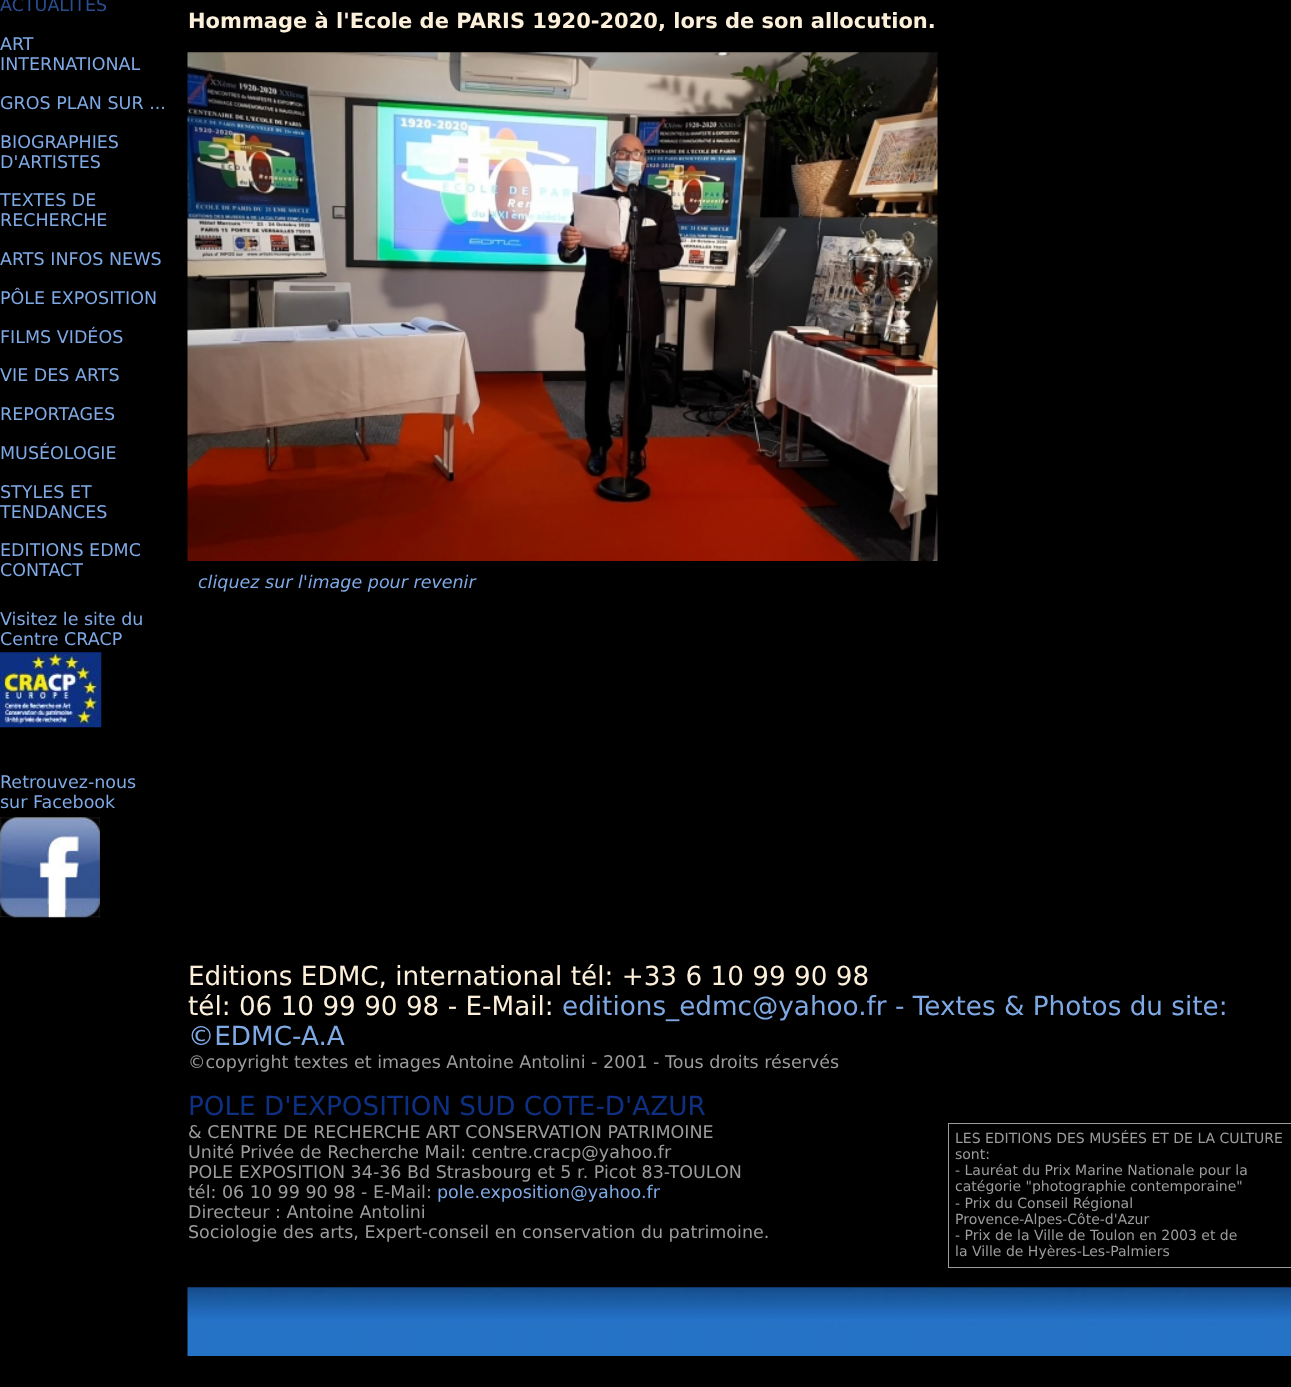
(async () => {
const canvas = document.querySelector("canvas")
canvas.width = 1291
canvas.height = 1387
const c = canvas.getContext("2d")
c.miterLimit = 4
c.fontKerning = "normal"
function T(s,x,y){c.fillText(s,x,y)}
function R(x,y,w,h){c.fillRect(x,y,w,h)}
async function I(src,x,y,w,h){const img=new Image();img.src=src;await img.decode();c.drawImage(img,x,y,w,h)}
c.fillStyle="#000"
R(0,0,1291,1387)
c.font="17.5px DejaVu Sans"
c.fillStyle="#284e90"
T("ACTUALITÉS",0,11)
c.fillStyle="#7fa9e5"
T("ART",0,50)
T("INTERNATIONAL",0,70)
T("GROS PLAN SUR ...",0,109)
T("BIOGRAPHIES",0,148)
T("D'ARTISTES",0,168)
T("TEXTES DE",0,206)
T("RECHERCHE",0,226)
T("ARTS INFOS NEWS",0,265)
T("PÔLE EXPOSITION",0,304)
T("FILMS VIDÉOS",0,343)
T("VIE DES ARTS",0,381)
T("REPORTAGES",0,420)
T("MUSÉOLOGIE",0,459)
T("STYLES ET",0,498)
T("TENDANCES",0,518)
T("EDITIONS EDMC",0,556)
T("CONTACT",0,576)
T("Visitez le site du",0,625)
T("Centre CRACP",0,645)
await I("1.png",0,652,102,76)
T("Retrouvez-nous",0,788)
T("sur Facebook",0,808)
await I("2.png",0,817,100,101)
c.font="bold 21px DejaVu Sans"
c.fillStyle="#fdf0da"
T("Hommage à l'Ecole de PARIS 1920-2020, lors de son allocution.",188,28)
await I("3.png",187,52,751,509)
c.font="italic 17.5px DejaVu Sans"
c.fillStyle="#7fa9e5"
T("cliquez sur l'image pour revenir",198,588)
c.font="26.25px DejaVu Sans"
c.fillStyle="#fdf0da"
T("Editions EDMC, international tél: +33 6 10 99 90 98",188,985)
T("tél: 06 10 99 90 98 - E-Mail:",188,1015)
c.fillStyle="#7fa9e5"
T("editions_edmc@yahoo.fr - Textes & Photos du site:",562,1015)
T("©EDMC-A.A",188,1045)
c.font="17.5px DejaVu Sans"
c.fillStyle="#9c9c9c"
T("©copyright textes et images Antoine Antolini - 2001 - Tous droits réservés",188,1068)
c.font="26.25px DejaVu Sans"
c.fillStyle="#0e3083"
T("POLE D'EXPOSITION SUD COTE-D'AZUR",188,1115)
c.font="17.5px DejaVu Sans"
c.fillStyle="#9c9c9c"
T("& CENTRE DE RECHERCHE ART CONSERVATION PATRIMOINE",188,1138)
T("Unité Privée de Recherche Mail: centre.cracp@yahoo.fr",188,1158)
T("POLE EXPOSITION 34-36 Bd Strasbourg et 5 r. Picot 83-TOULON",188,1178)
T("tél: 06 10 99 90 98 - E-Mail:",188,1198)
c.fillStyle="#7fa9e5"
T("pole.exposition@yahoo.fr",437,1198)
c.fillStyle="#9c9c9c"
T("Directeur : Antoine Antolini",188,1218)
T("Sociologie des arts, Expert-conseil en conservation du patrimoine.",188,1238)
c.strokeStyle="#9c9c9c"
c.strokeRect(948.5,1123.5,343,144)
c.font="14px DejaVu Sans"
T("LES EDITIONS DES MUSÉES ET DE LA CULTURE",955,1143)
T("sont:",955,1159)
T("- Lauréat du Prix Marine Nationale pour la",955,1175)
T("catégorie \"photographie contemporaine\"",955,1191)
T("- Prix du Conseil Régional",955,1208)
T("Provence-Alpes-Côte-d'Azur",955,1224)
T("- Prix de la Ville de Toulon en 2003 et de",955,1240)
T("la Ville de Hyères-Les-Palmiers",955,1256)
await I("4.png",187,1287,1104,69)
})()
